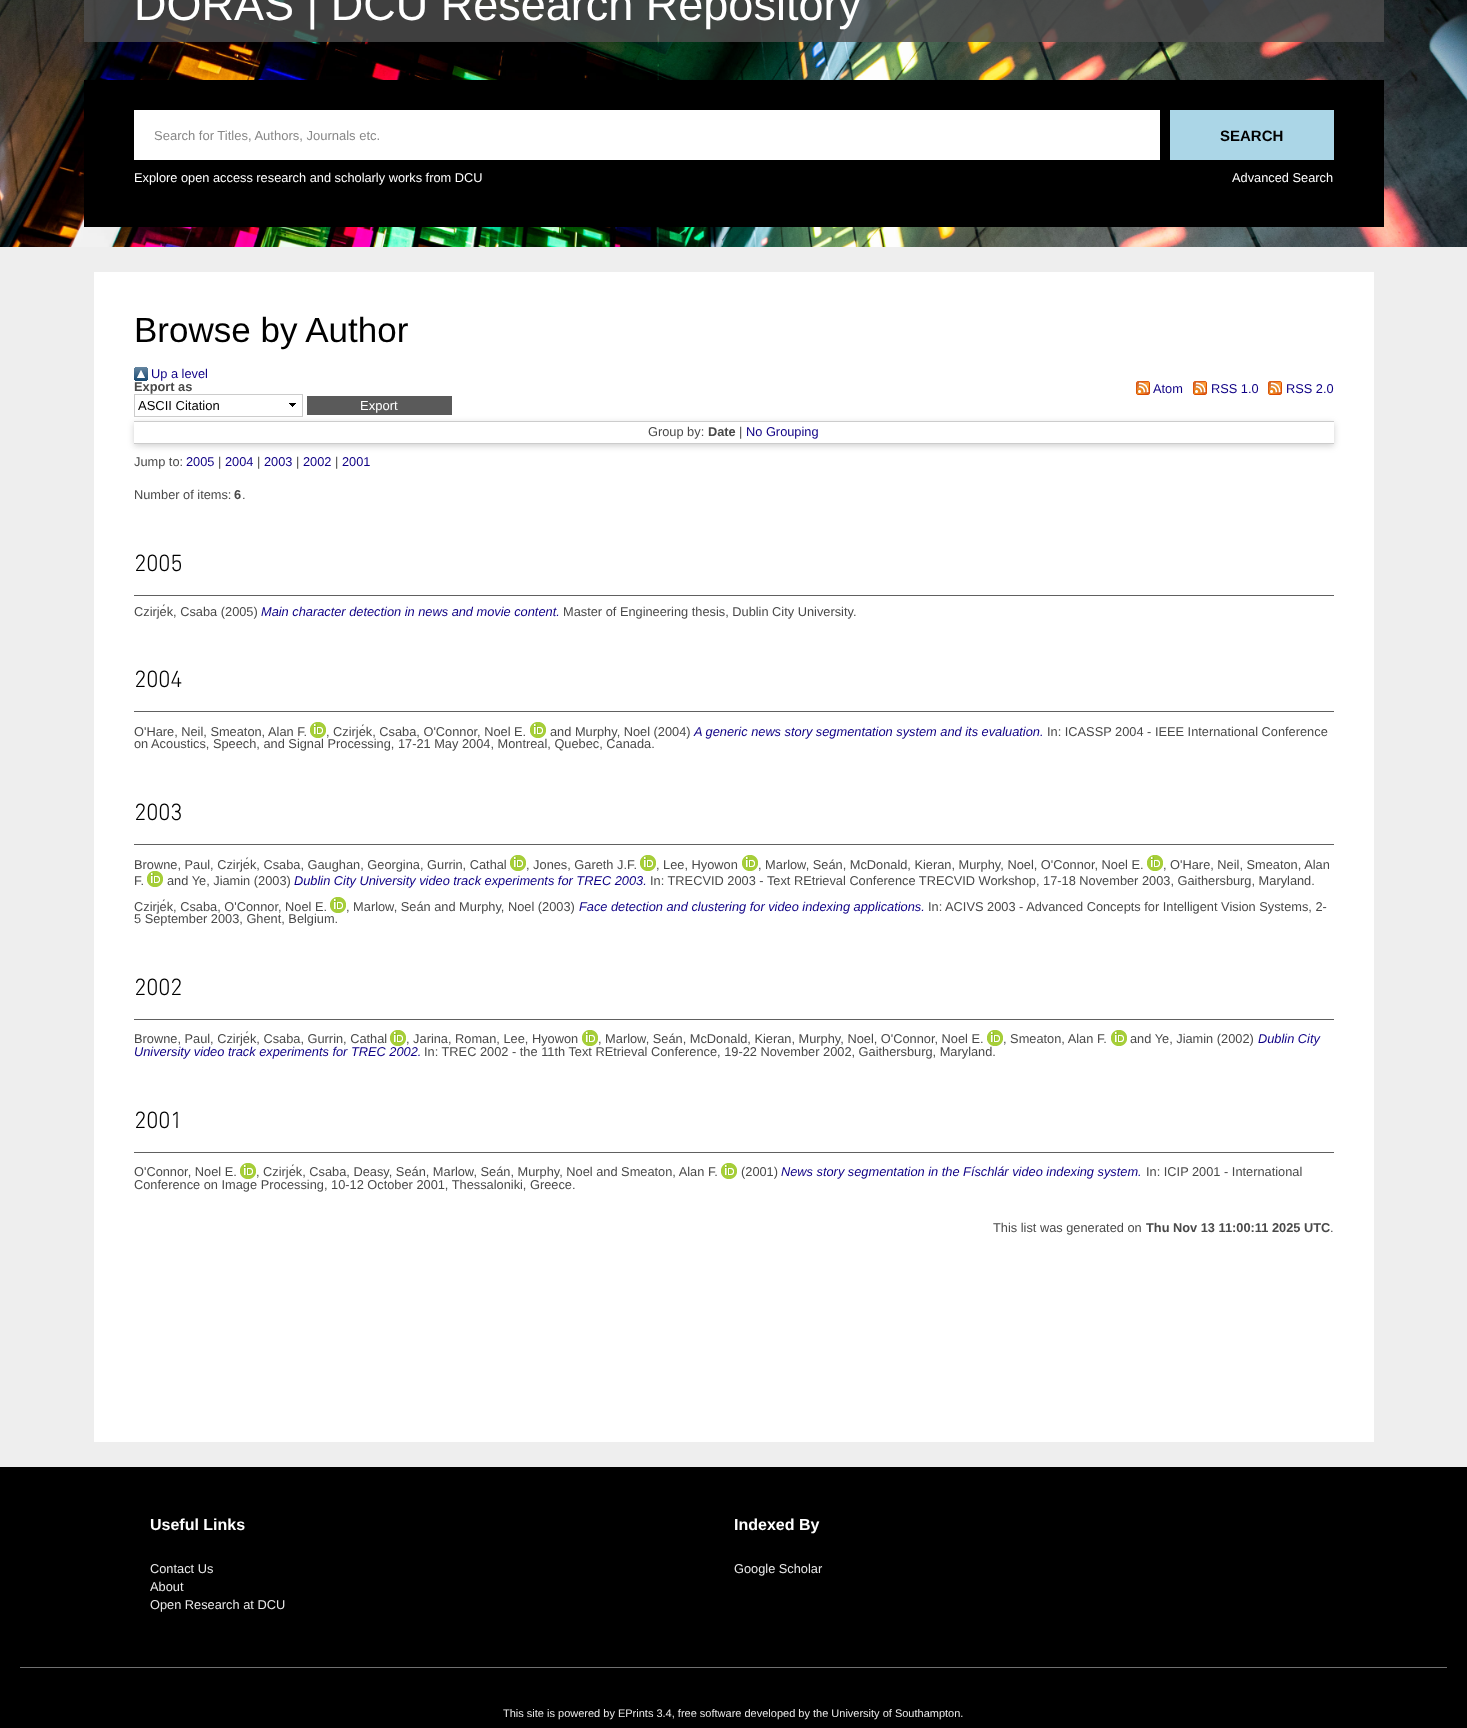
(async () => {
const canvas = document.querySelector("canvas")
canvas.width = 1467
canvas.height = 1728
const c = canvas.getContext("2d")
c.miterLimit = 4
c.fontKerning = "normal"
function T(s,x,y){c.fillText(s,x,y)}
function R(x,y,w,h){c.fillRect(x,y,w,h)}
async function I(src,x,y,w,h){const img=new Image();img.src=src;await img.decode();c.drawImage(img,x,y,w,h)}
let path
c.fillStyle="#eee"
R(0,0,1467,1728)
await I("1.png",0,0,1467,247)
c.fillStyle="#4d4d4dd1"
R(84,0,1300,42)
c.font="45px Liberation Sans"
c.fillStyle="#fff"
T("DORAS | DCU Research Repository",134,20)
c.fillStyle="#000"
R(84,80,1300,147)
c.fillStyle="#fff"
R(134,110,1026,50)
c.font="13px Liberation Sans"
c.fillStyle="#888"
T("Search for Titles, Authors, Journals etc.",154,140)
c.fillStyle="#abd6e7"
R(1170,110,164,50)
c.font="bold 15px Liberation Sans"
c.fillStyle="#000"
T("SEARCH",1220,141)
c.font="12.8px Liberation Sans"
c.fillStyle="#fff"
T("Explore open access research and scholarly works from DCU",134,182)
T("Advanced Search",1232,182)
R(94,272,1280,1170)
c.font="35px Liberation Sans"
c.fillStyle="#000"
T("Browse by Author",134,342)
await I("2.png",134,367,14,14)
c.font="12.8px Liberation Sans"
c.fillStyle="#0f0085"
T("Up a level",151,378)
c.font="bold 12.8px Liberation Sans"
c.fillStyle="#494949"
T("Export as",134,391)
await I("3.png",289,403,7,4)
c.save()
path = new Path2D("M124 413h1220v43h-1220zm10 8h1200v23h-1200z")
c.clip(path,"evenodd")
c.fillStyle="#6464644d"
c.filter="blur(3px)"
c.beginPath()
c.rect(134,423,1200,23)
c.fill()
c.filter="none"
c.restore()
c.strokeStyle="#ccc"
c.strokeRect(134.5,394.5,168,22)
c.font="13px Liberation Sans"
c.fillStyle="#000"
T("ASCII Citation",138,410)
c.fillStyle="#5a5a5a"
R(307,396,145,19)
c.fillStyle="#fff"
T("Export",360,410)
await I("4.png",1136,381,14,14)
c.font="12.8px Liberation Sans"
c.fillStyle="#0f0085"
T("Atom",1153,393)
await I("4.png",1193,381,14,14)
T("RSS 1.0",1211,393)
await I("4.png",1268,381,14,14)
T("RSS 2.0",1286,393)
c.fillStyle="#ccc"
R(134,421,1200,1)
R(134,443,1200,1)
c.fillStyle="#494949"
T("Group by:",648,436)
c.font="bold 12.8px Liberation Sans"
T("Date",708,436)
c.font="12.8px Liberation Sans"
T("|",739,436)
c.fillStyle="#0f0085"
T("No Grouping",746,436)
c.fillStyle="#494949"
T("Jump to:",134,466)
c.fillStyle="#0f0085"
T("2005",186,466)
c.fillStyle="#494949"
T("|",218,466)
c.fillStyle="#0f0085"
T("2004",225,466)
c.fillStyle="#494949"
T("|",257,466)
c.fillStyle="#0f0085"
T("2003",264,466)
c.fillStyle="#494949"
T("|",296,466)
c.fillStyle="#0f0085"
T("2002",303,466)
c.fillStyle="#494949"
T("|",335,466)
c.fillStyle="#0f0085"
T("2001",342,466)
c.fillStyle="#494949"
T("Number of items:",134,499)
c.font="bold 12.8px Liberation Sans"
T("6",234,499)
c.font="12.8px Liberation Sans"
T(".",242,499)
c.fillStyle="#606060"
R(134,595,1200,1)
c.font="bold 23px 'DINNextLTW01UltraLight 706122'"
c.fillStyle="#000"
T("2005",134,571)
c.font="12.8px Liberation Sans"
c.fillStyle="#494949"
T("Czirjék, Csaba (2005)",134,616)
c.font="italic 12.8px Liberation Sans"
c.fillStyle="#0f0085"
T("Main character detection in news and movie content.",261,616)
c.font="12.8px Liberation Sans"
c.fillStyle="#494949"
T("Master of Engineering thesis, Dublin City University.",563,616)
c.fillStyle="#606060"
R(134,711,1200,1)
c.font="bold 23px 'DINNextLTW01UltraLight 706122'"
c.fillStyle="#000"
T("2004",134,687)
c.font="12.8px Liberation Sans"
c.fillStyle="#494949"
T("O'Hare, Neil, Smeaton, Alan F.",134,736)
await I("5.png",310,722,16,16)
T(", Czirjék, Csaba, O'Connor, Noel E.",326,736)
await I("5.png",530,722,16,16)
T("and Murphy, Noel (2004)",550,736)
c.font="italic 12.8px Liberation Sans"
c.fillStyle="#0f0085"
T("A generic news story segmentation system and its evaluation.",694,736)
c.font="12.8px Liberation Sans"
c.fillStyle="#494949"
T("In: ICASSP 2004 - IEEE International Conference",1047,736)
T("on Acoustics, Speech, and Signal Processing, 17-21 May 2004, Montreal, Quebec, Canada.",134,748)
c.fillStyle="#606060"
R(134,844,1200,1)
c.font="bold 23px 'DINNextLTW01UltraLight 706122'"
c.fillStyle="#000"
T("2003",134,820)
c.font="12.8px Liberation Sans"
c.fillStyle="#494949"
T("Browne, Paul, Czirjék, Csaba, Gaughan, Georgina, Gurrin, Cathal",134,869)
await I("5.png",510,855,16,16)
T(", Jones, Gareth J.F.",526,869)
await I("5.png",640,855,16,16)
T(", Lee, Hyowon",656,869)
await I("5.png",742,855,16,16)
T(", Marlow, Seán, McDonald, Kieran, Murphy, Noel, O'Connor, Noel E.",758,869)
await I("5.png",1147,855,16,16)
T(", O'Hare, Neil, Smeaton, Alan",1163,869)
T("F.",134,885)
await I("5.png",147,871,16,16)
T("and Ye, Jiamin (2003)",167,885)
c.font="italic 12.8px Liberation Sans"
c.fillStyle="#0f0085"
T("Dublin City University video track experiments for TREC 2003.",294,885)
c.font="12.8px Liberation Sans"
c.fillStyle="#494949"
T("In: TRECVID 2003 - Text REtrieval Conference TRECVID Workshop, 17-18 November 2003, Gaithersburg, Maryland.",650,885)
T("Czirjék, Csaba, O'Connor, Noel E.",134,911)
await I("5.png",330,897,16,16)
T(", Marlow, Seán and Murphy, Noel (2003)",346,911)
c.font="italic 12.8px Liberation Sans"
c.fillStyle="#0f0085"
T("Face detection and clustering for video indexing applications.",579,911)
c.font="12.8px Liberation Sans"
c.fillStyle="#494949"
T("In: ACIVS 2003 - Advanced Concepts for Intelligent Vision Systems, 2-",928,911)
T("5 September 2003, Ghent, Belgium.",134,923)
c.fillStyle="#606060"
R(134,1019,1200,1)
c.font="bold 23px 'DINNextLTW01UltraLight 706122'"
c.fillStyle="#000"
T("2002",134,995)
c.font="12.8px Liberation Sans"
c.fillStyle="#494949"
T("Browne, Paul, Czirjék, Csaba, Gurrin, Cathal",134,1043)
await I("5.png",390,1030,16,16)
T(", Jarina, Roman, Lee, Hyowon",406,1043)
await I("5.png",582,1030,16,16)
T(", Marlow, Seán, McDonald, Kieran, Murphy, Noel, O'Connor, Noel E.",598,1043)
await I("5.png",987,1030,16,16)
T(", Smeaton, Alan F.",1003,1043)
await I("5.png",1111,1030,16,16)
T("and Ye, Jiamin (2002)",1130,1043)
c.font="italic 12.8px Liberation Sans"
c.fillStyle="#0f0085"
T("Dublin City",1258,1043)
T("University video track experiments for TREC 2002.",134,1056)
c.font="12.8px Liberation Sans"
c.fillStyle="#494949"
T("In: TREC 2002 - the 11th Text REtrieval Conference, 19-22 November 2002, Gaithersburg, Maryland.",424,1056)
c.fillStyle="#606060"
R(134,1152,1200,1)
c.font="bold 23px 'DINNextLTW01UltraLight 706122'"
c.fillStyle="#000"
T("2001",134,1128)
c.font="12.8px Liberation Sans"
c.fillStyle="#494949"
T("O'Connor, Noel E.",134,1176)
await I("5.png",240,1163,16,16)
T(", Czirjék, Csaba, Deasy, Seán, Marlow, Seán, Murphy, Noel and Smeaton, Alan F.",256,1176)
await I("5.png",721,1163,16,16)
T("(2001)",741,1176)
c.font="italic 12.8px Liberation Sans"
c.fillStyle="#0f0085"
T("News story segmentation in the Físchlár video indexing system.",781,1176)
c.font="12.8px Liberation Sans"
c.fillStyle="#494949"
T("In: ICIP 2001 - International",1146,1176)
T("Conference on Image Processing, 10-12 October 2001, Thessaloniki, Greece.",134,1189)
T("This list was generated on",993,1232)
c.font="bold 12.8px Liberation Sans"
T("Thu Nov 13 11:00:11 2025 UTC",1146,1232)
c.font="12.8px Liberation Sans"
T(".",1330,1232)
c.fillStyle="#000"
R(0,1467,1467,261)
c.font="bold 16px Liberation Sans"
c.fillStyle="#fff"
T("Useful Links",150,1530)
c.font="12.8px Liberation Sans"
c.fillStyle="#e9e9e9"
T("Contact Us",150,1573)
T("About",150,1591)
T("Open Research at DCU",150,1609)
c.font="bold 16px Liberation Sans"
c.fillStyle="#fff"
T("Indexed By",734,1530)
c.font="12.8px Liberation Sans"
c.fillStyle="#e9e9e9"
T("Google Scholar",734,1573)
c.fillStyle="#707070"
R(20,1667,1427,1)
c.font="11px Liberation Sans"
c.fillStyle="#e9e9e9"
T("This site is powered by EPrints 3.4, free software developed by the University of Southampton.",503,1717)
})()
